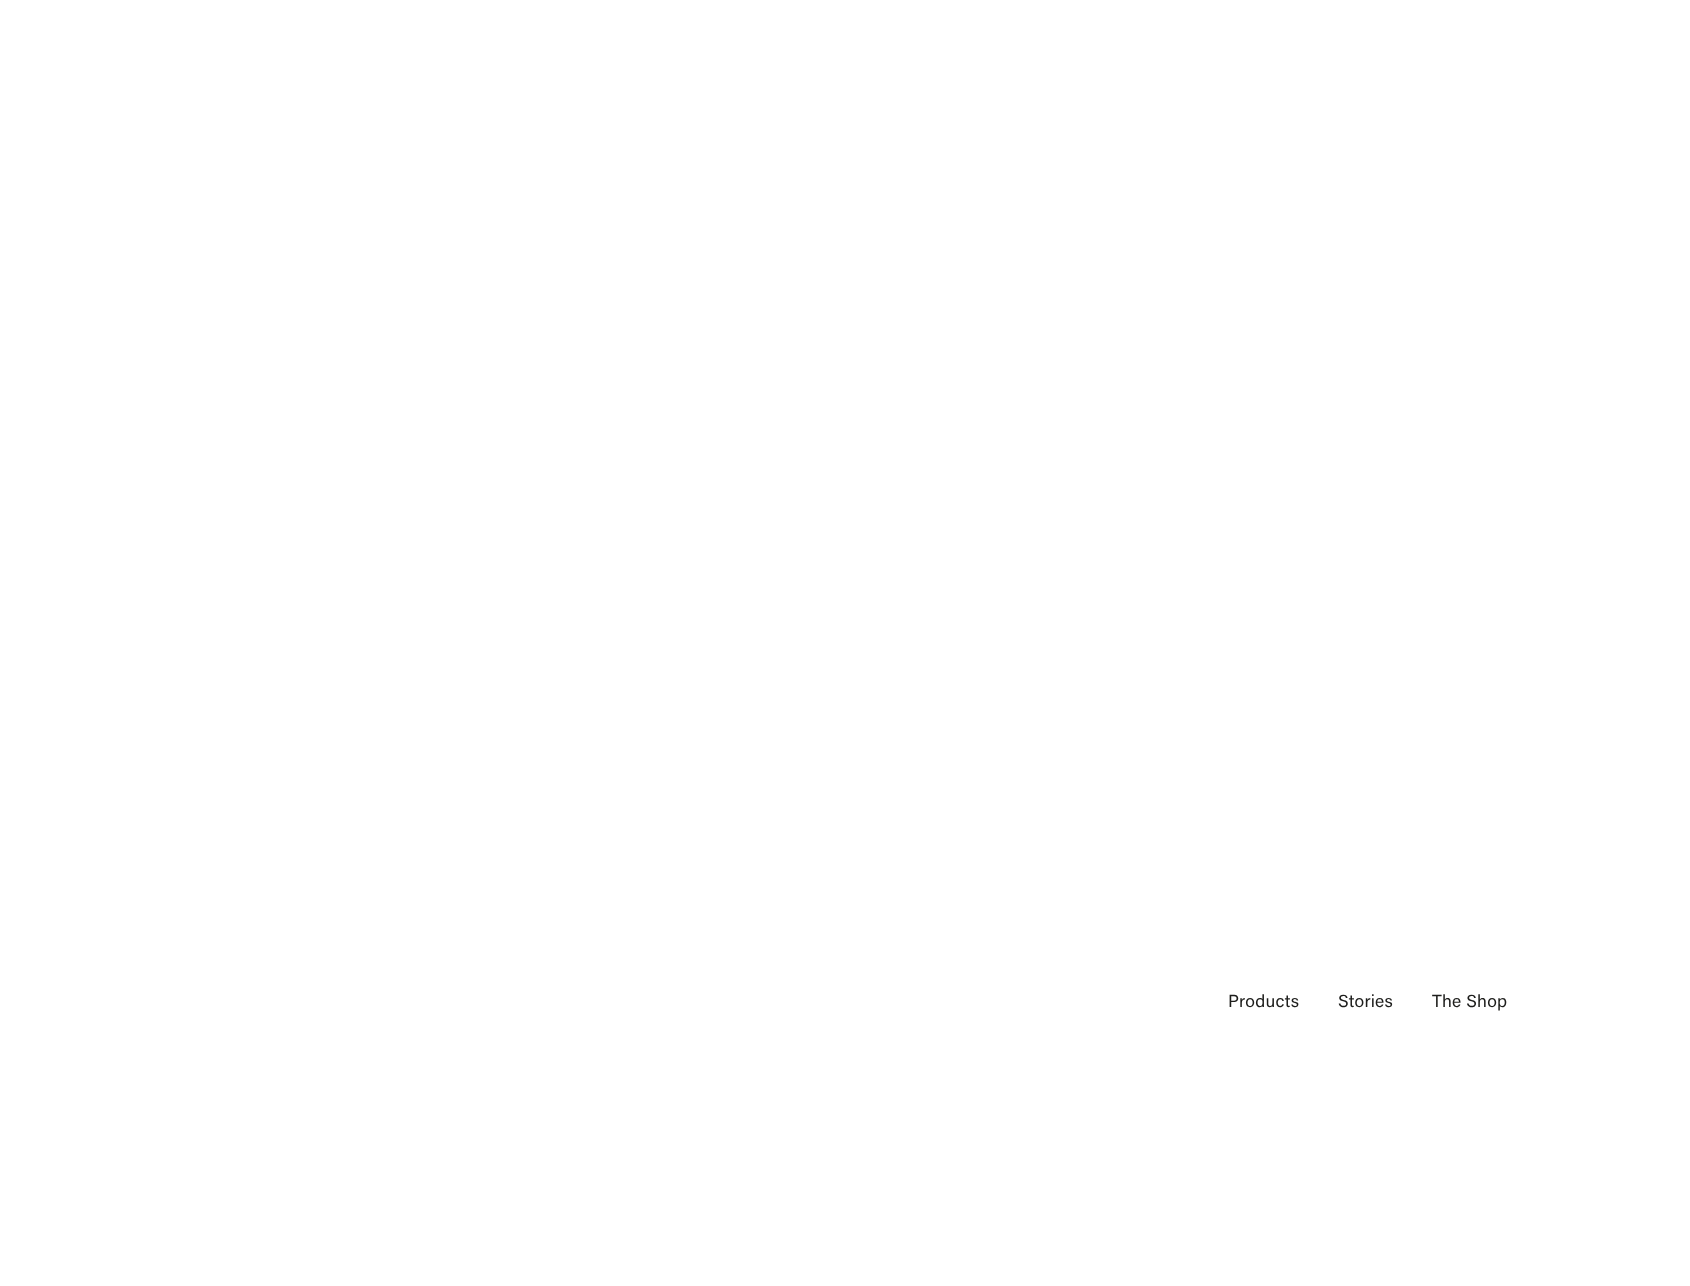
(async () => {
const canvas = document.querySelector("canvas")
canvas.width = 1690
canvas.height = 1286
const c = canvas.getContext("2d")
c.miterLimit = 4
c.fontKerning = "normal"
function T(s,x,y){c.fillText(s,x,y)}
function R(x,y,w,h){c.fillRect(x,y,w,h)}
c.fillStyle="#fff"
R(0,0,1690,1286)
c.letterSpacing="0.25px"
c.font="17.5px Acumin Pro"
c.fillStyle="#1e1e1c"
T("Products",1228,1007)
T("Stories",1338,1007)
T("The Shop",1432,1007)
})()
